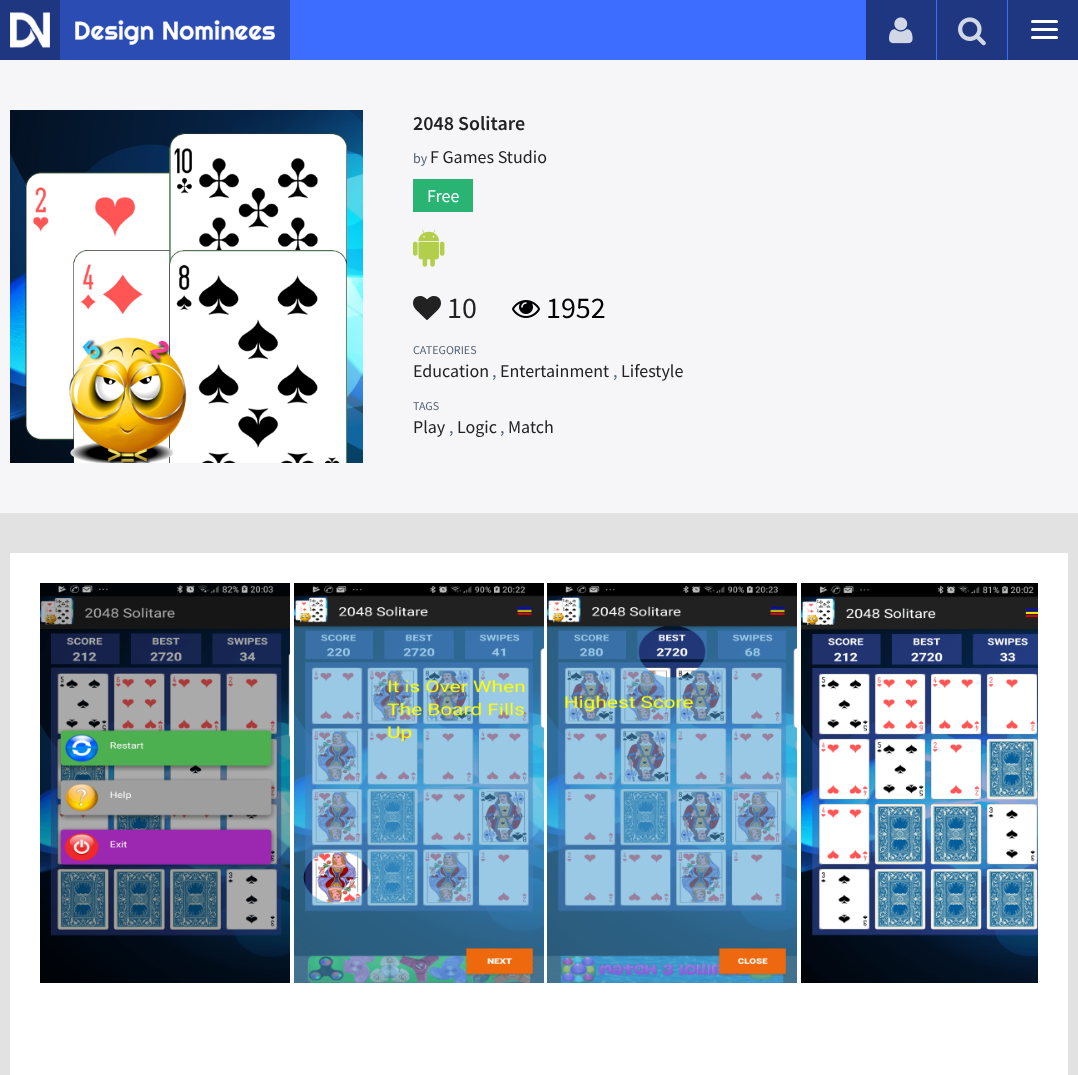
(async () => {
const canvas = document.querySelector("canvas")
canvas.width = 1078
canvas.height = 1075
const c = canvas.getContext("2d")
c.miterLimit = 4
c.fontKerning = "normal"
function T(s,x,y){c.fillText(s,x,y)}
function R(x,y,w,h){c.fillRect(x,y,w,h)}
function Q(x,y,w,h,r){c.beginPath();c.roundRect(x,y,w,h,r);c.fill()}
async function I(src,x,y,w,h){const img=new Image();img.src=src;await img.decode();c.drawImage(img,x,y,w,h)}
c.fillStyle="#e2e2e2"
R(0,0,1078,1075)
c.fillStyle="#3d6dff"
R(290,0,718,60)
c.fillStyle="#1f3780"
R(0,0,60,60)
await I("1.png",10,12,40,36)
c.fillStyle="#2b4cb3"
R(60,0,230,60)
await I("2.png",75,20,200,25)
c.fillStyle="#1f3780"
R(866,0,70,60)
await I("3.png",889,17,24,27)
R(937,0,70,60)
await I("4.png",958,17,28,29)
R(1008,0,70,60)
c.fillStyle="#fff"
Q(1031,20,27,3,1.5)
Q(1031,28,27,3,1.5)
Q(1031,36,27,3,1.5)
c.fillStyle="#f6f6f9"
R(0,60,1078,453)
await I("5.png",10,110,353,353)
c.font="600 20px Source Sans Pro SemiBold"
c.fillStyle="#222"
T("2048 Solitare",413,130)
c.font="14px Source Sans Pro"
c.fillStyle="#536273"
T("by",413,163)
c.font="18px Source Sans Pro"
c.fillStyle="#222"
T("F Games Studio",430,163)
c.fillStyle="#29b474"
R(413,179,60,33)
c.fillStyle="#fff"
T("Free",427,202)
await I("6.png",413,229,32,38)
await I("7.png",413,296,28,24)
c.font="30px Source Sans Pro"
c.fillStyle="#222"
T("10",447,318)
await I("8.png",512,300,28,18)
c.fillStyle="#000"
T("1952",546,318)
c.font="12px Source Sans Pro"
c.fillStyle="#536273"
T("CATEGORIES",413,354)
c.font="18px Source Sans Pro"
c.fillStyle="#222"
T("Education",413,377)
c.fillStyle="#536273"
T(",",492,377)
c.fillStyle="#222"
T("Entertainment",500,377)
c.fillStyle="#536273"
T(",",613,377)
c.fillStyle="#222"
T("Lifestyle",621,377)
c.font="12px Source Sans Pro"
c.fillStyle="#536273"
T("TAGS",413,410)
c.font="18px Source Sans Pro"
c.fillStyle="#222"
T("Play",413,433)
c.fillStyle="#536273"
T(",",449,433)
c.fillStyle="#222"
T("Logic",457,433)
c.fillStyle="#536273"
T(",",500,433)
c.fillStyle="#222"
T("Match",508,433)
c.fillStyle="#fff"
R(10,553,1058,522)
await I("9.png",40,583,250,400)
await I("10.png",294,583,250,400)
await I("11.png",547,583,250,400)
await I("12.png",801,583,237,400)
})()
